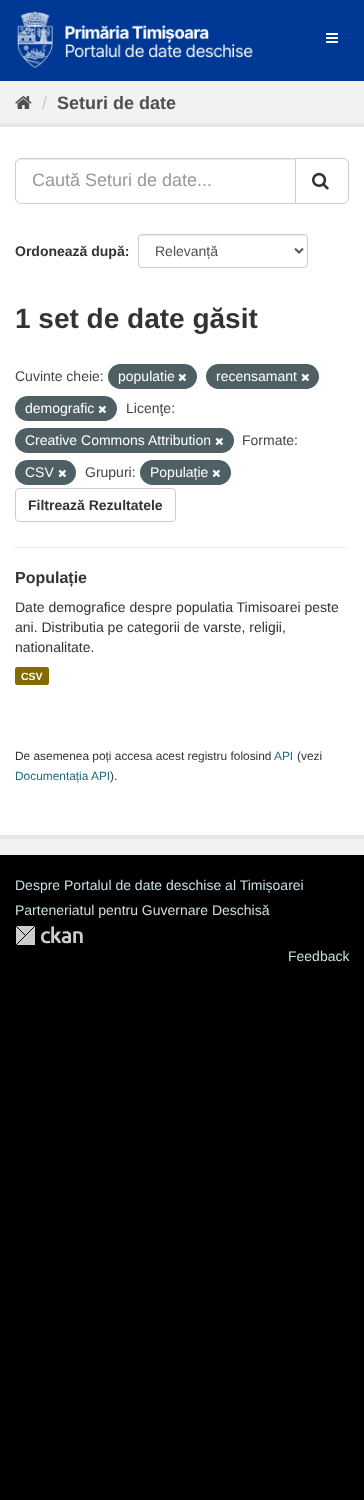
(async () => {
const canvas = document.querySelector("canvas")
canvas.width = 364
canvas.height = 1500
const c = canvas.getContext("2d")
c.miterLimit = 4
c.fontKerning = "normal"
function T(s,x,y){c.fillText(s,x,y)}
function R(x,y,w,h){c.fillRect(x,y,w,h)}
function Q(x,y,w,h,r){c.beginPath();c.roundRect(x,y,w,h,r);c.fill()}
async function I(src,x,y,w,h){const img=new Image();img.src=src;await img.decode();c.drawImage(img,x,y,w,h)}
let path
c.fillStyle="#000"
R(0,0,364,1500)
c.fillStyle="#003995"
R(0,0,364,81)
await I("1.png",17,11,236,58)
await I("2.png",326,33,12,10)
c.fillStyle="#f2f2f2"
R(0,81,364,774)
await I("3.png",15,96,17,13)
c.font="18px Liberation Sans"
c.fillStyle="#ccc"
T("/",42,109)
c.font="bold 18px Liberation Sans"
c.fillStyle="#505050"
T("Seturi de date",57,109)
c.strokeStyle="#e6e6e6"
c.lineWidth=4
c.strokeRect(-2,125,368,712)
c.fillStyle="#fff"
R(0,127,364,708)
path = new Path2D("M15 547.5h334")
c.strokeStyle="#ddd"
c.lineWidth=1
c.setLineDash([1,1])
c.stroke(path)
c.fillStyle="#ececec"
path = new Path2D("M21 160h274v-1h-274c-3 0-5 3-5 6c0-3 2-5 5-5z")
c.fill(path)
c.beginPath()
c.roundRect(15.5,158.5,280,45,[5.5,0,0,5.5])
c.strokeStyle="#ccc"
c.setLineDash([])
c.stroke()
c.font="18px Liberation Sans"
c.fillStyle="#999"
T("Caută Seturi de date...",32,186)
c.fillStyle="#fff"
c.beginPath()
c.roundRect(295.5,158.5,53,45,[0,5.5,5.5,0])
c.fill()
c.stroke()
await I("4.png",312,172,17,18)
c.font="bold 14px Liberation Sans"
c.fillStyle="#333"
T("Ordonează după:",15,256)
c.fillStyle="#ececec"
path = new Path2D("M142 236h162c2 0 3 1 3 3v-1c0-2-1-3-3-3h-162c-2 0-3 1-3 3v1c0-2 1-3 3-3z")
c.fill(path)
c.beginPath()
c.roundRect(138.5,234.5,169,33,3.5)
c.stroke()
path = new Path2D("M295 248.5l4 4l4-4")
c.strokeStyle="#555"
c.lineWidth=2
c.stroke(path)
c.font="14px Liberation Sans"
c.fillStyle="#505050"
T("Relevanță",155,256)
c.font="bold 28px Liberation Sans"
c.fillStyle="#333"
T("1 set de date găsit",15,328)
c.font="14px Liberation Sans"
c.fillStyle="#444"
T("Cuvinte cheie:",15,381)
c.fillStyle="#4e5f65"
Q(108,364,89,25,12.5)
c.fillStyle="#fff"
T("populatie",118,381)
await I("5.png",178,373,8,9)
c.fillStyle="#4e5f65"
Q(206,364,113,25,12.5)
c.fillStyle="#fff"
T("recensamant",216,381)
await I("5.png",301,373,8,9)
c.fillStyle="#4e5f65"
Q(15,396,102,25,12.5)
c.fillStyle="#fff"
T("demografic",25,413)
await I("5.png",98,405,8,9)
c.fillStyle="#444"
T("Licenţe:",126,413)
c.fillStyle="#4e5f65"
Q(15,428,219,25,12.5)
c.fillStyle="#fff"
T("Creative Commons Attribution",25,445)
await I("5.png",215,437,8,9)
c.fillStyle="#444"
T("Formate:",242,445)
c.fillStyle="#4e5f65"
Q(15,460,61,25,12.5)
c.fillStyle="#fff"
T("CSV",25,477)
await I("5.png",58,469,8,9)
c.fillStyle="#444"
T("Grupuri:",85,477)
c.fillStyle="#4e5f65"
Q(140,460,91,25,12.5)
c.fillStyle="#fff"
T("Populație",150,477)
await I("5.png",212,469,8,9)
c.beginPath()
c.roundRect(15.5,488.5,160,33,3.5)
c.strokeStyle="#ccc"
c.lineWidth=1
c.stroke()
c.font="bold 14px Liberation Sans"
c.fillStyle="#333"
T("Filtrează Rezultatele",28,510)
c.font="bold 16px Liberation Sans"
T("Populație",15,583)
c.font="14px Liberation Sans"
T("Date demografice despre populatia Timisoarei peste",15,612)
T("ani. Distributia pe categorii de varste, religii,",15,632)
T("nationalitate.",15,652)
c.fillStyle="#856a00"
Q(15,667,34,18,2.5)
c.font="bold 10.5px Liberation Sans"
c.fillStyle="#fff"
T("CSV",21,680)
c.font="11.9px Liberation Sans"
c.fillStyle="#333"
T("De asemenea poți accesa acest registru folosind",15,760)
c.fillStyle="#206b82"
T("API",274,760)
c.fillStyle="#333"
T("(vezi",297,760)
c.fillStyle="#206b82"
T("Documentația API",15,780)
c.fillStyle="#333"
T(").",110,780)
c.font="14px Liberation Sans"
c.fillStyle="#ccdee3"
T("Despre Portalul de date deschise al Timișoarei",15,890)
T("Parteneriatul pentru Guvernare Deschisă",15,915)
await I("6.png",16,926,67,19)
T("Feedback",288,961)
})()
